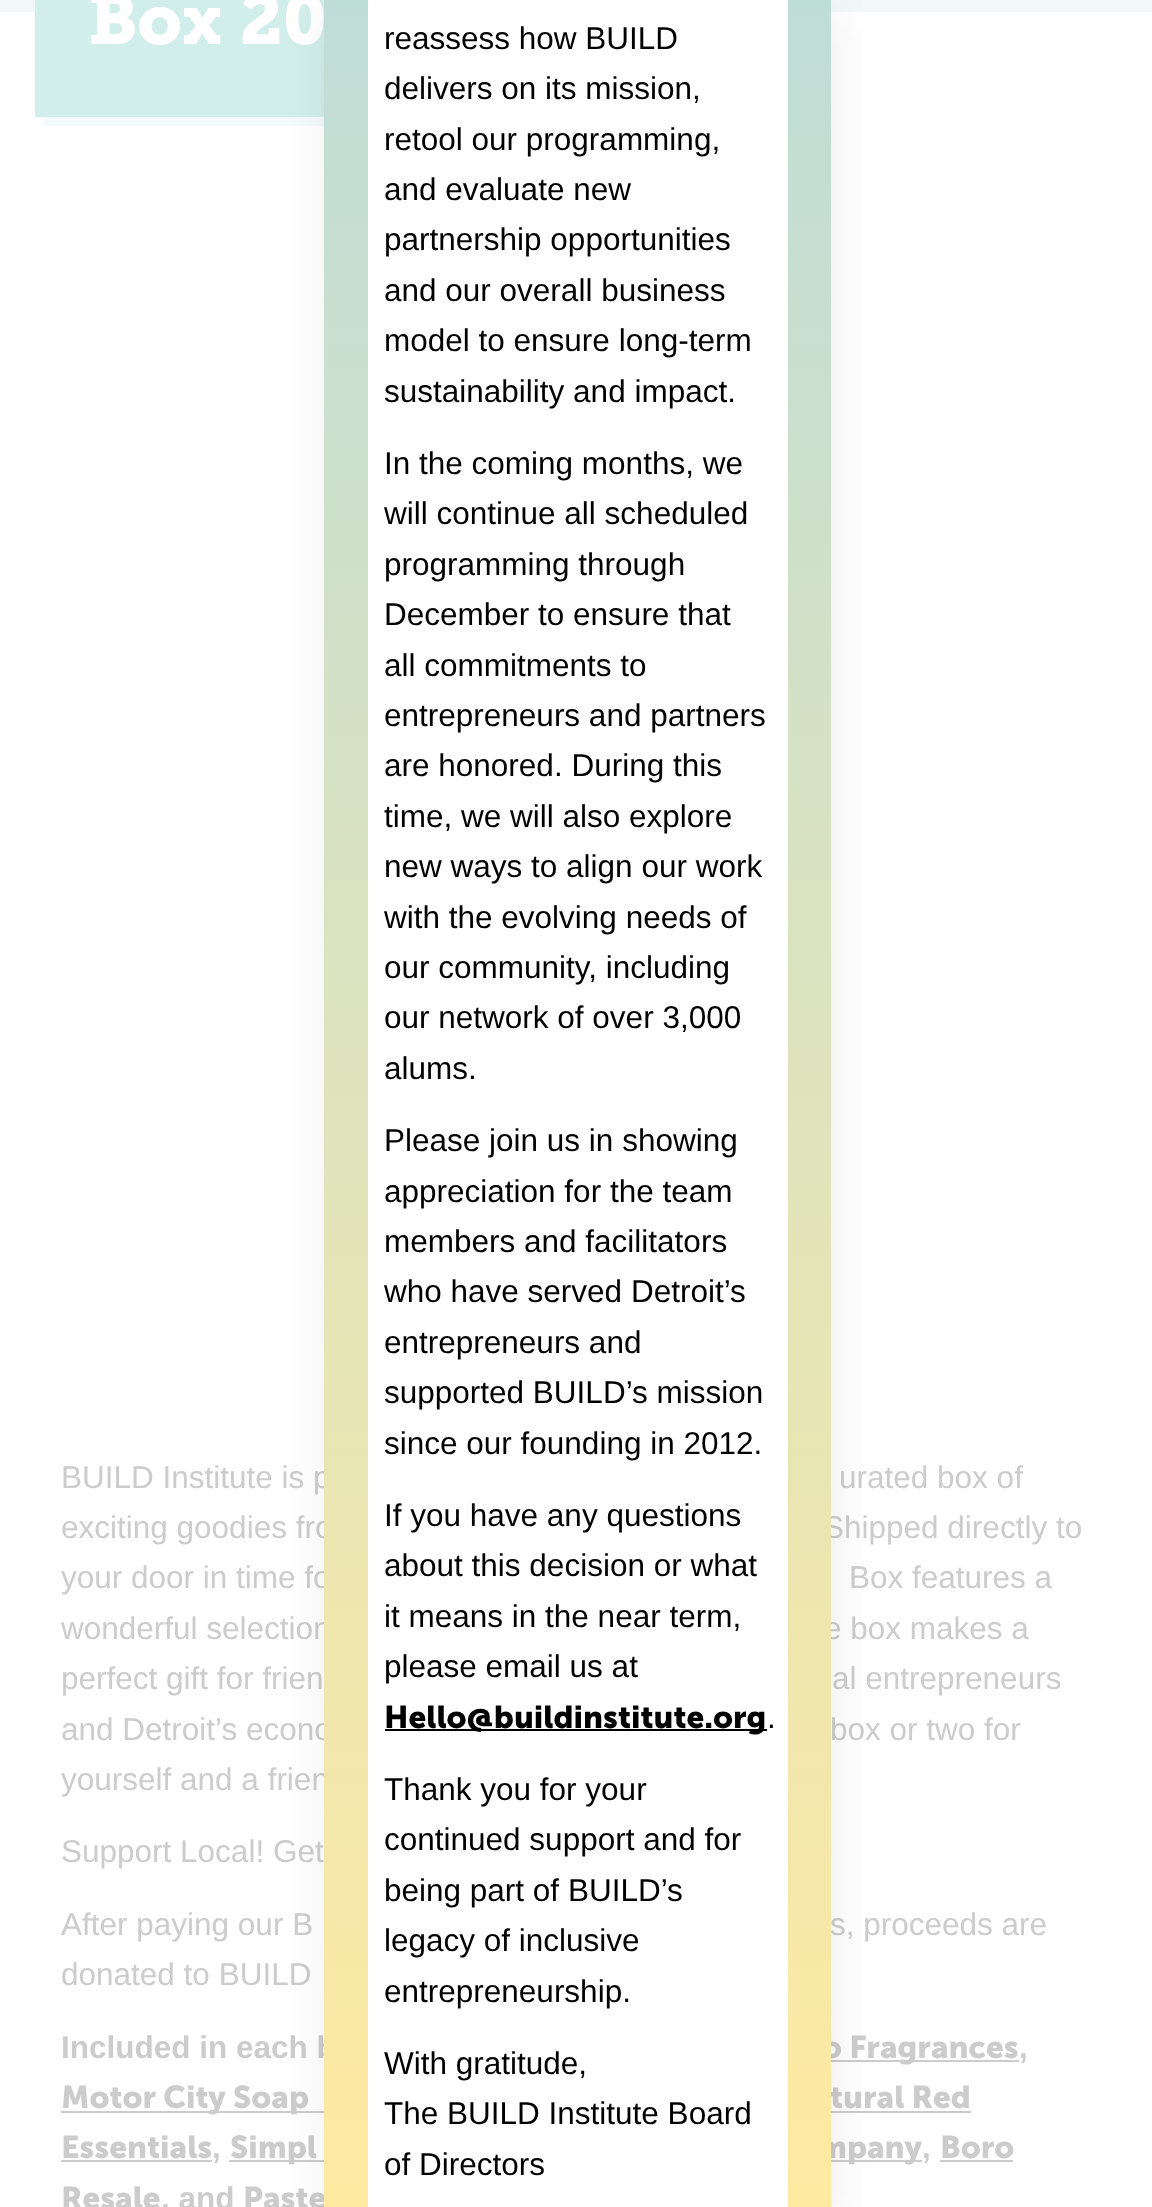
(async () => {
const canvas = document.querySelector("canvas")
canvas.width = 1152
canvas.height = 2207
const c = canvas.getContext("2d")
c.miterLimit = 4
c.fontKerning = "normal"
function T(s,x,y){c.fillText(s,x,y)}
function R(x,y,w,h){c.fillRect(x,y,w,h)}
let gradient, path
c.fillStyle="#fff"
R(0,0,1152,2207)
c.fillStyle="#f2f8f7"
R(0,0,1152,12)
c.fillStyle="#ebf6f78c"
path = new Path2D("M44 117v9h719v-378h-9v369z")
c.fill(path)
c.fillStyle="#d2eeea"
R(35,0,289,117)
c.font="bold 70px 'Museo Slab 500'"
c.fillStyle="#fff"
T("Box 20",88,44)
c.font="31.5px Liberation Sans"
c.fillStyle="#ccc"
T("BUILD Institute is p",61,1488)
T("urated box of",839,1488)
T("exciting goodies fro",61,1538)
T("Shipped directly to",823,1538)
T("your door in time fo",61,1588)
T("Box features a",849,1588)
T("wonderful selection",61,1639)
T("e box makes a",824,1639)
T("perfect gift for frien",61,1689)
T("al entrepreneurs",832,1689)
T("and Detroit’s econo",61,1740)
T("box or two for",830,1740)
T("yourself and a frien",61,1790)
T("Support Local! Get",61,1862)
T("After paying our B",61,1935)
T("s, proceeds are",830,1935)
T("donated to BUILD",61,1985)
c.font="bold 31.5px Liberation Sans"
T("Included in each b",61,2058)
R(831,2060,188,2)
c.font="bold 31.5px 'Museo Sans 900'"
T("o Fragrances",822,2058)
c.font="bold 31.5px Liberation Sans"
T(",",1019,2058)
R(61,2111,263,2)
c.font="bold 31.5px 'Museo Sans 900'"
T("Motor City Soap",61,2108)
T("tural Red",830,2108)
R(831,2111,140,2)
T("Essentials",61,2158)
c.font="bold 31.5px Liberation Sans"
T(",",212,2158)
R(61,2160,151,2)
R(229,2160,95,2)
c.font="bold 31.5px 'Museo Sans 900'"
T("Simpl",230,2158)
R(831,2160,91,2)
T("mpany",818,2158)
c.font="bold 31.5px Liberation Sans"
T(",",922,2158)
R(940,2160,73,2)
c.font="bold 31.5px 'Museo Sans 900'"
T("Boro",940,2158)
T("Resale",61,2209)
c.font="bold 31.5px Liberation Sans"
T(", and",161,2209)
c.font="bold 31.5px 'Museo Sans 900'"
T("Paste",243,2209)
c.fillStyle="#00000012"
c.filter="blur(20px)"
c.beginPath()
c.rect(327,14,508,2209)
c.fill()
c.filter="none"
gradient = c.createLinearGradient(577,0,578,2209)
gradient.addColorStop(0,"#bfddd7")
gradient.addColorStop(1,"#ffeaa1")
c.fillStyle = gradient
R(324,0,507,2207)
c.fillStyle="#fff"
R(368,0,420,2207)
c.font="31.5px Liberation Sans"
c.fillStyle="#000"
T("reassess how BUILD",384,49)
T("delivers on its mission,",384,99)
T("retool our programming,",384,150)
T("and evaluate new",384,200)
T("partnership opportunities",384,250)
T("and our overall business",384,301)
T("model to ensure long-term",384,351)
T("sustainability and impact.",384,402)
T("In the coming months, we",384,474)
T("will continue all scheduled",384,524)
T("programming through",384,575)
T("December to ensure that",384,625)
T("all commitments to",384,676)
T("entrepreneurs and partners",384,726)
T("are honored. During this",384,776)
T("time, we will also explore",384,827)
T("new ways to align our work",384,877)
T("with the evolving needs of",384,928)
T("our community, including",384,978)
T("our network of over 3,000",384,1028)
T("alums.",384,1079)
T("Please join us in showing",384,1151)
T("appreciation for the team",384,1202)
T("members and facilitators",384,1252)
T("who have served Detroit’s",384,1302)
T("entrepreneurs and",384,1353)
T("supported BUILD’s mission",384,1403)
T("since our founding in 2012.",384,1454)
T("If you have any questions",384,1526)
T("about this decision or what",384,1576)
T("it means in the near term,",384,1627)
T("please email us at",384,1677)
R(385,1729,382,2)
c.font="bold 31.5px 'Museo Sans 900'"
T("Hello@buildinstitute.org",384,1728)
c.font="31.5px Liberation Sans"
T(".",767,1728)
T("Thank you for your",384,1800)
T("continued support and for",384,1850)
T("being part of BUILD’s",384,1901)
T("legacy of inclusive",384,1951)
T("entrepreneurship.",384,2002)
T("With gratitude,",384,2074)
T("The BUILD Institute Board",384,2124)
T("of Directors",384,2175)
})()
